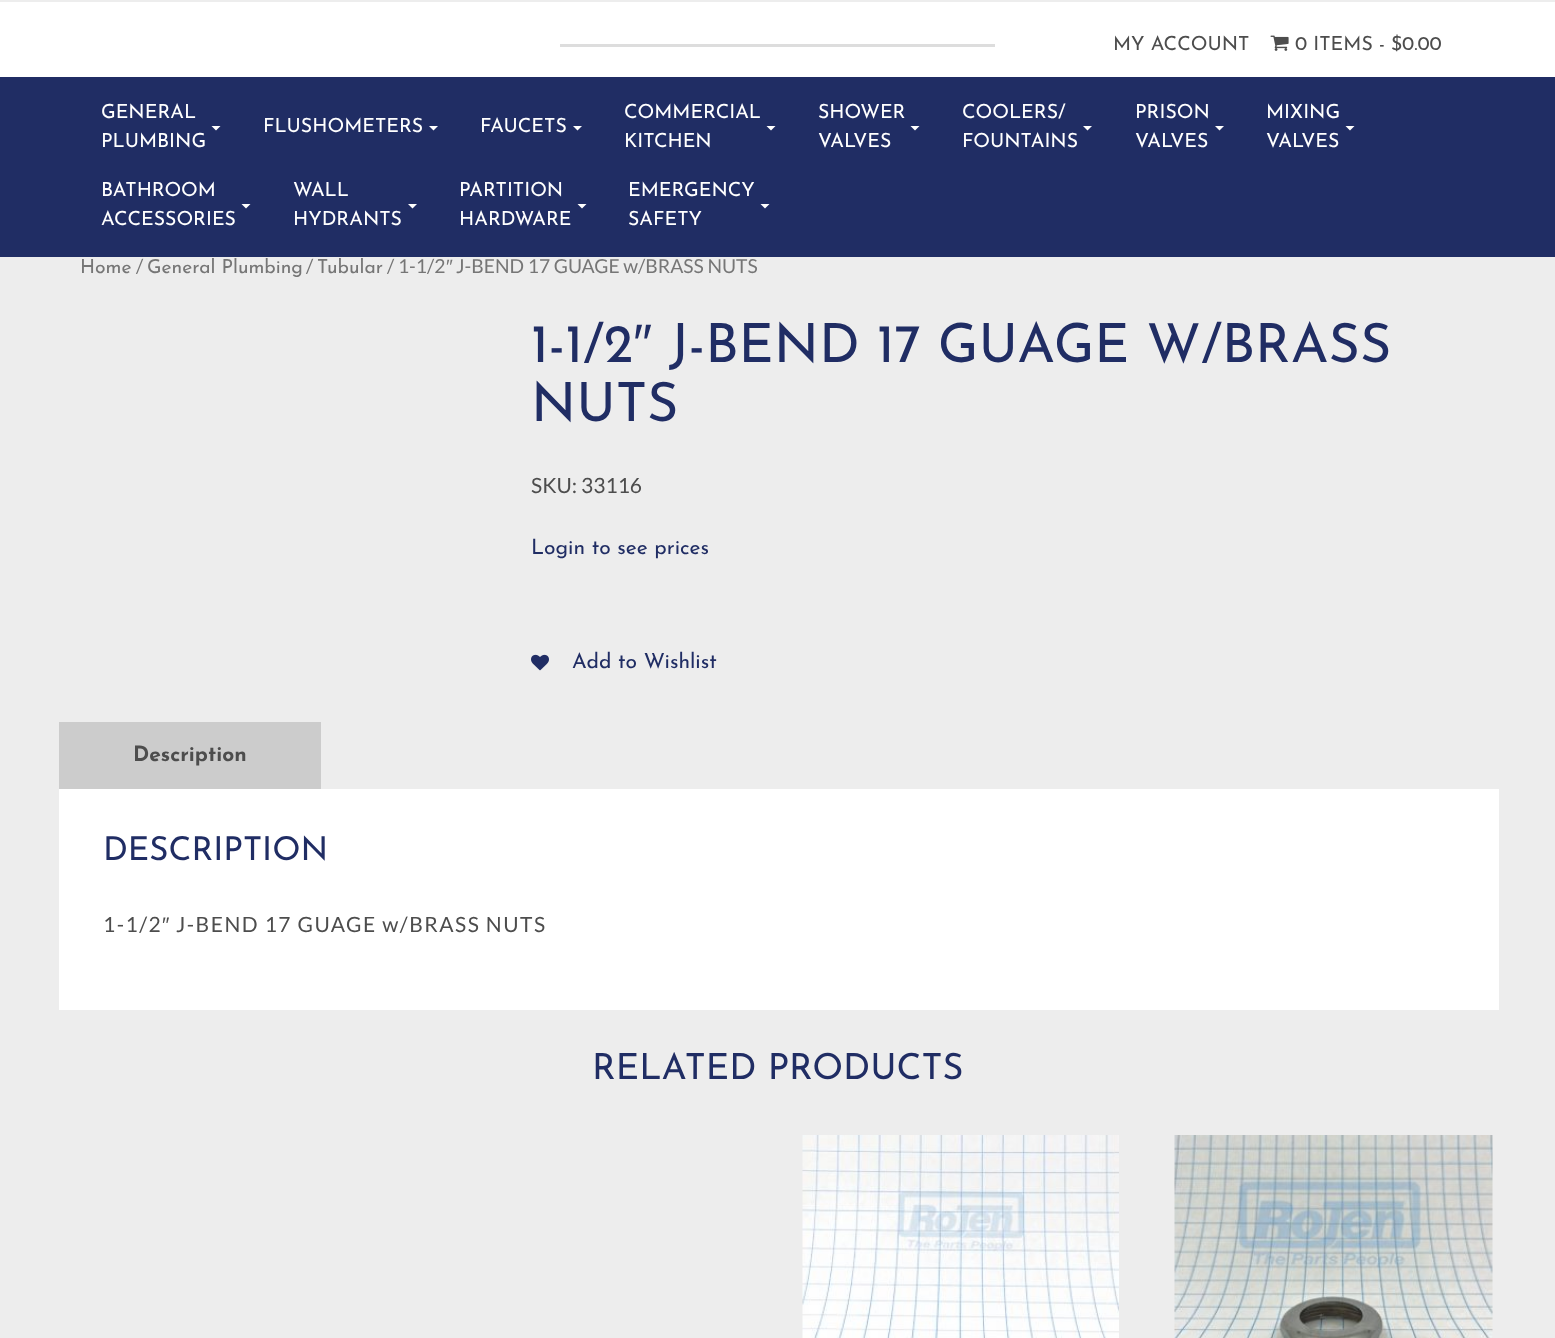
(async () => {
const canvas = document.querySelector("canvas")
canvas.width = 1555
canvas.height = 1338
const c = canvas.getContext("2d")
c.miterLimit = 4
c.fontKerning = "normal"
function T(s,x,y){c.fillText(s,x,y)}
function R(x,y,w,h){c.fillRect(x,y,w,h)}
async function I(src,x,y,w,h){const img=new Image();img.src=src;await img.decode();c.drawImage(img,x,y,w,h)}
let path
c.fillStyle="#ededed"
R(0,0,1555,1338)
c.fillStyle="#fff"
R(0,2,1555,75)
c.fillStyle="#ddd"
R(560,44,435,3)
c.font="19.5px Josefin Sans"
c.fillStyle="#4d4d4d"
T("MY ACCOUNT",1113,50)
await I("1.png",1270,35,19,16)
T("0 ITEMS - $0.00",1295,50)
c.fillStyle="#202d64"
R(0,77,1555,180)
c.fillStyle="#fff"
T("GENERAL",101,118)
path = new Path2D("M211.5 126h9l-4.5 4.5z")
c.fill(path)
T("PLUMBING",101,147)
T("FLUSHOMETERS",263,132)
path = new Path2D("M429 126h9l-4.5 4.5z")
c.fill(path)
T("FAUCETS",480,132)
path = new Path2D("M573 126h9l-4.5 4.5z")
c.fill(path)
T("COMMERCIAL",624,118)
path = new Path2D("M766.5 126h9l-4.5 4.5z")
c.fill(path)
T("KITCHEN",624,147)
T("SHOWER",818,118)
path = new Path2D("M910.5 126h9l-4.5 4.5z")
c.fill(path)
T("VALVES",818,147)
T("COOLERS/",962,118)
path = new Path2D("M1083 126h9l-4.5 4.5z")
c.fill(path)
T("FOUNTAINS",962,147)
T("PRISON",1135,118)
path = new Path2D("M1215 126h9l-4.5 4.5z")
c.fill(path)
T("VALVES",1135,147)
T("MIXING",1266,118)
path = new Path2D("M1345.5 126h9l-4.5 4.5z")
c.fill(path)
T("VALVES",1266,147)
T("BATHROOM",101,196)
path = new Path2D("M241.5 204h9l-4.5 4.5z")
c.fill(path)
T("ACCESSORIES",101,225)
T("WALL",293,196)
path = new Path2D("M408 204h9l-4.5 4.5z")
c.fill(path)
T("HYDRANTS",293,225)
T("PARTITION",459,196)
path = new Path2D("M577.5 204h9l-4.5 4.5z")
c.fill(path)
T("HARDWARE",459,225)
T("EMERGENCY",628,196)
path = new Path2D("M760.5 204h9l-4.5 4.5z")
c.fill(path)
T("SAFETY",628,225)
c.font="19.3px Josefin Sans"
c.fillStyle="#767676"
T("Home",80,273)
c.font="19.3px Lato"
T("/",136,273)
c.font="19.3px Josefin Sans"
T("General Plumbing",147,273)
c.font="19.3px Lato"
T("/",306,273)
c.font="19.3px Josefin Sans"
T("Tubular",317,273)
c.font="19.3px Lato"
T("/ 1-1/2",387,273)
c.font="19.3px Liberation Sans"
T("″",446,273)
c.font="19.3px Lato"
T("J-BEND 17 GUAGE w/BRASS NUTS",456,273)
c.font="54px Josefin Sans"
c.fillStyle="#202d64"
T("1-1/2",531,362)
c.font="54px Liberation Sans"
T("″",633,362)
c.font="54px Josefin Sans"
T("J-BEND 17 GUAGE W/BRASS",669,362)
T("NUTS",531,421)
c.font="21px Lato"
c.fillStyle="#4d4d4d"
T("SKU: 33116",531,493)
c.font="21px Josefin Sans"
c.fillStyle="#202d64"
T("Login to see prices",531,554)
await I("2.png",531,654,18,17)
T("Add to Wishlist",572,668)
c.fillStyle="#ccc"
R(59,722,262,67)
c.font="bold 21px Josefin Sans"
c.fillStyle="#4d4d4d"
T("Description",133,761)
c.fillStyle="#fff"
R(59,789,1440,221)
c.font="33px Josefin Sans"
c.fillStyle="#202d64"
T("DESCRIPTION",103,860)
c.letterSpacing="1.5px"
c.font="21px Lato"
c.fillStyle="#4d4d4d"
T("1-1/2",103,932)
c.font="21px Liberation Sans"
T("″",162,932)
c.font="21px Lato"
T("J-BEND 17 GUAGE w/BRASS NUTS",176,932)
c.letterSpacing="0px"
c.font="36px Josefin Sans"
c.fillStyle="#202d64"
T("RELATED PRODUCTS",592,1079)
await I("3.png",802,1135,317,203)
await I("4.png",1174,1135,319,203)
})()
